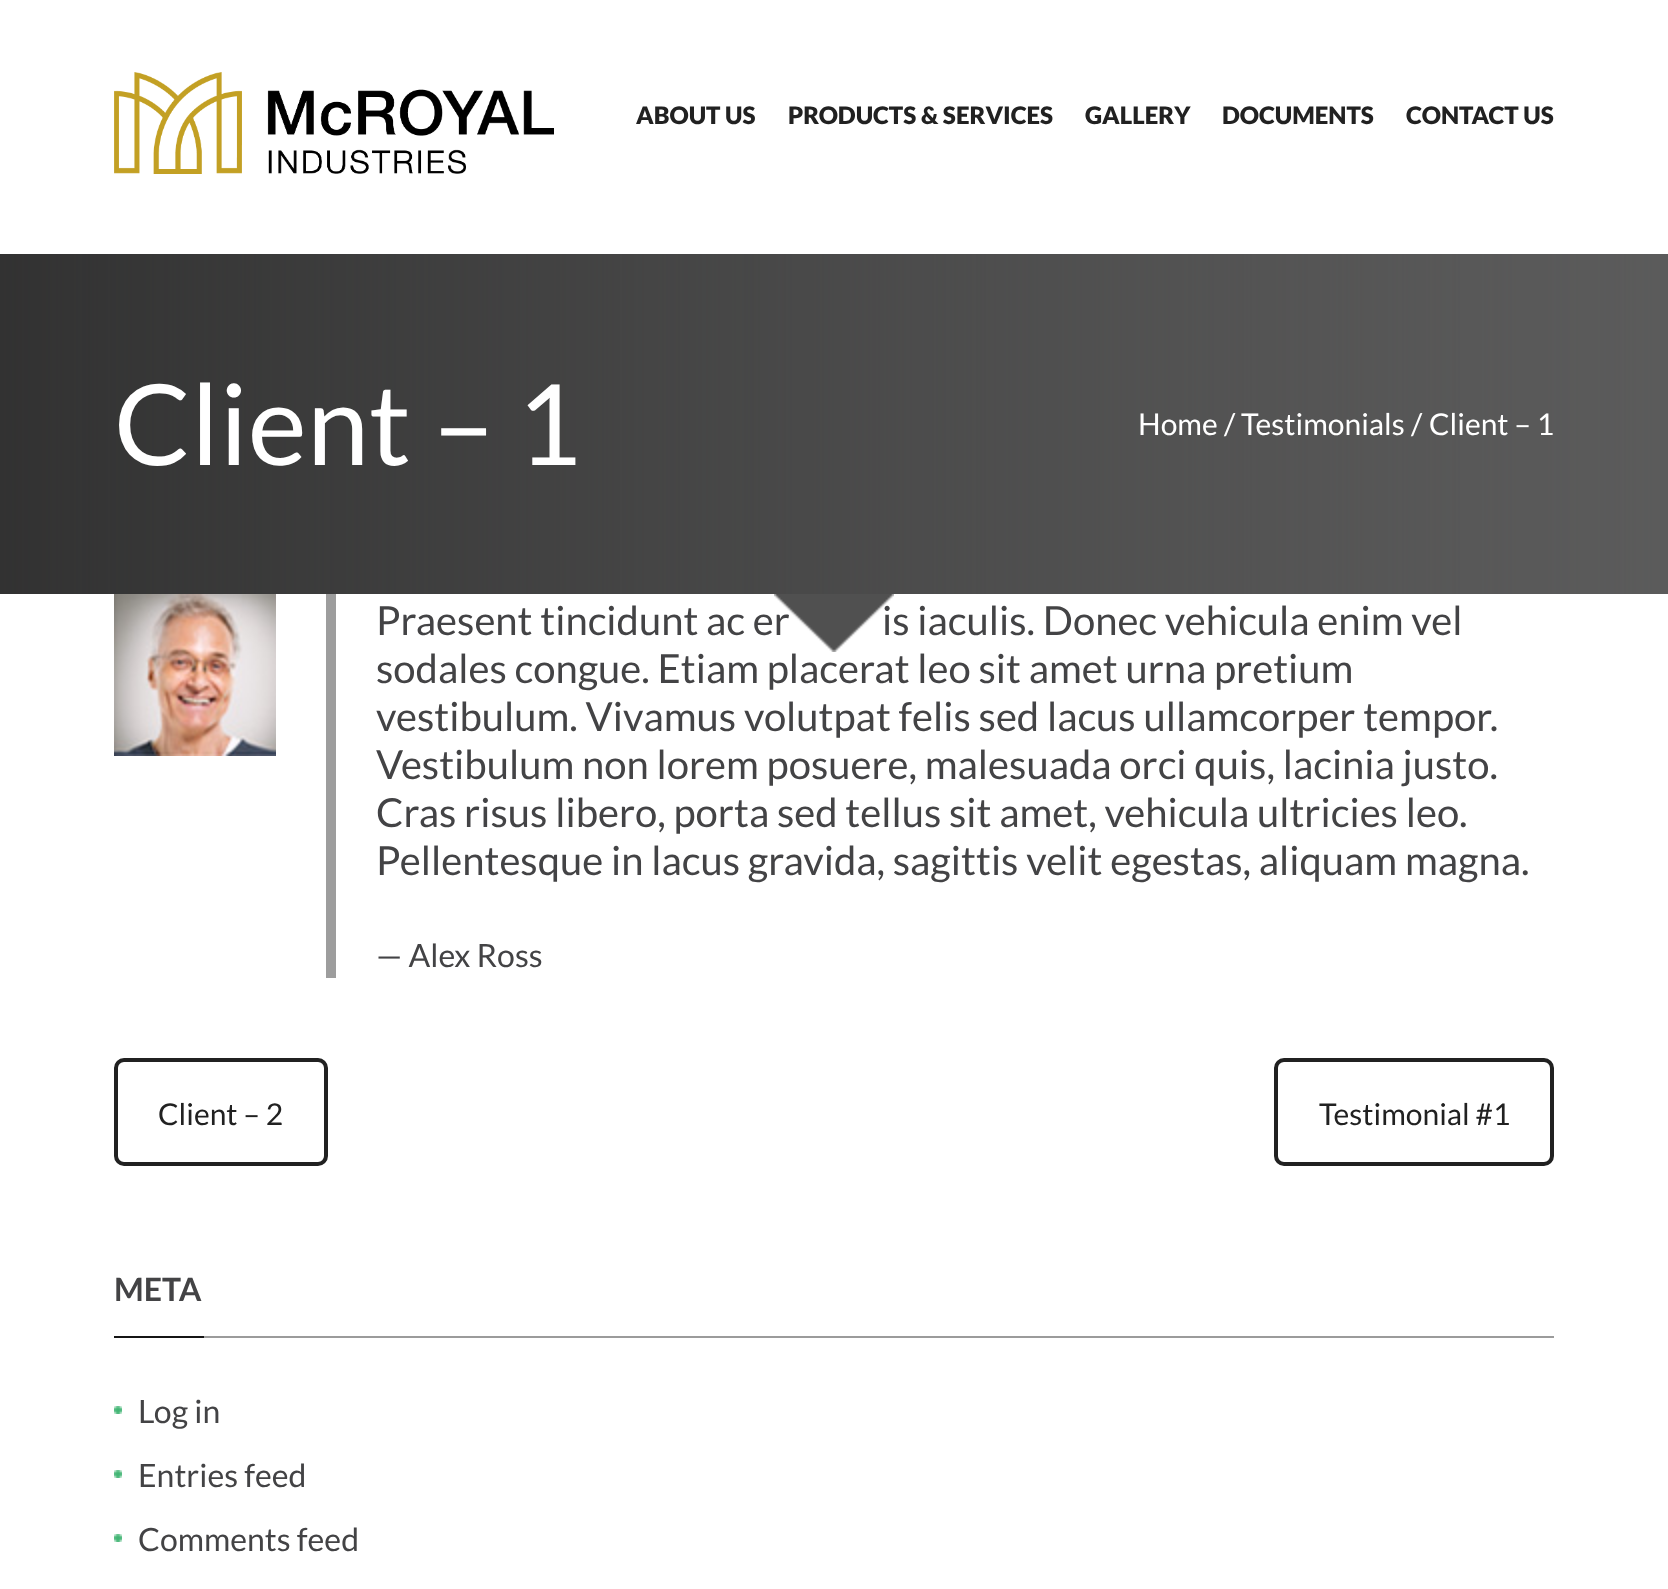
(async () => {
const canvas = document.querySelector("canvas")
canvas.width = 1668
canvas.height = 1589
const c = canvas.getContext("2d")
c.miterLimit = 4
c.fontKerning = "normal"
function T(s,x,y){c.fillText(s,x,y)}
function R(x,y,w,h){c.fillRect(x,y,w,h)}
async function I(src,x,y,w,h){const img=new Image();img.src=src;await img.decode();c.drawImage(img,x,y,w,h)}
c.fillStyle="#fff"
R(0,0,1668,1589)
await I("1.png",114,72,440,102)
c.font="900 24px Lato"
c.fillStyle="#212121"
T("ABOUT US",636,124)
T("PRODUCTS & SERVICES",788,124)
T("GALLERY",1085,124)
T("DOCUMENTS",1222,124)
T("CONTACT US",1406,124)
await I("2.png",0,254,1668,340)
c.font="112px Lato"
c.fillStyle="#fff"
T("Client – 1",114,465)
c.font="30px Lato"
T("Home",1138,435)
T("/",1224,435)
T("Testimonials",1241,435)
T("/",1411,435)
T("Client – 1",1429,435)
c.font="40px Lato"
c.fillStyle="#434345"
T("Praesent tincidunt ac er",376,635)
T("is iaculis. Donec vehicula enim vel",882,635)
await I("3.png",774,594,120,58)
await I("4.png",114,594,162,162)
c.fillStyle="#9d9d9d"
R(326,594,10,384)
c.fillStyle="#434345"
T("sodales congue. Etiam placerat leo sit amet urna pretium",376,683)
T("vestibulum. Vivamus volutpat felis sed lacus ullamcorper tempor.",376,731)
T("Vestibulum non lorem posuere, malesuada orci quis, lacinia justo.",376,779)
T("Cras risus libero, porta sed tellus sit amet, vehicula ultricies leo.",376,827)
T("Pellentesque in lacus gravida, sagittis velit egestas, aliquam magna.",376,875)
c.font="32px Lato"
T("— Alex Ross",376,967)
c.beginPath()
c.roundRect(116,1060,210,104,8)
c.strokeStyle="#212121"
c.lineWidth=4
c.stroke()
c.font="30px Lato"
c.fillStyle="#212121"
T("Client – 2",158,1125)
c.beginPath()
c.roundRect(1276,1060,276,104,8)
c.stroke()
T("Testimonial #1",1319,1125)
c.fillStyle="#9b9b9b"
R(204,1336,1350,2)
c.font="bold 32px Lato"
c.fillStyle="#434345"
T("META",114,1301)
c.fillStyle="#151515"
R(114,1336,90,2)
await I("5.png",114,1406,8,8)
c.font="32px Lato"
c.fillStyle="#434345"
T("Log in",138,1423)
await I("5.png",114,1470,8,8)
T("Entries feed",138,1487)
await I("5.png",114,1534,8,8)
T("Comments feed",138,1551)
})()
